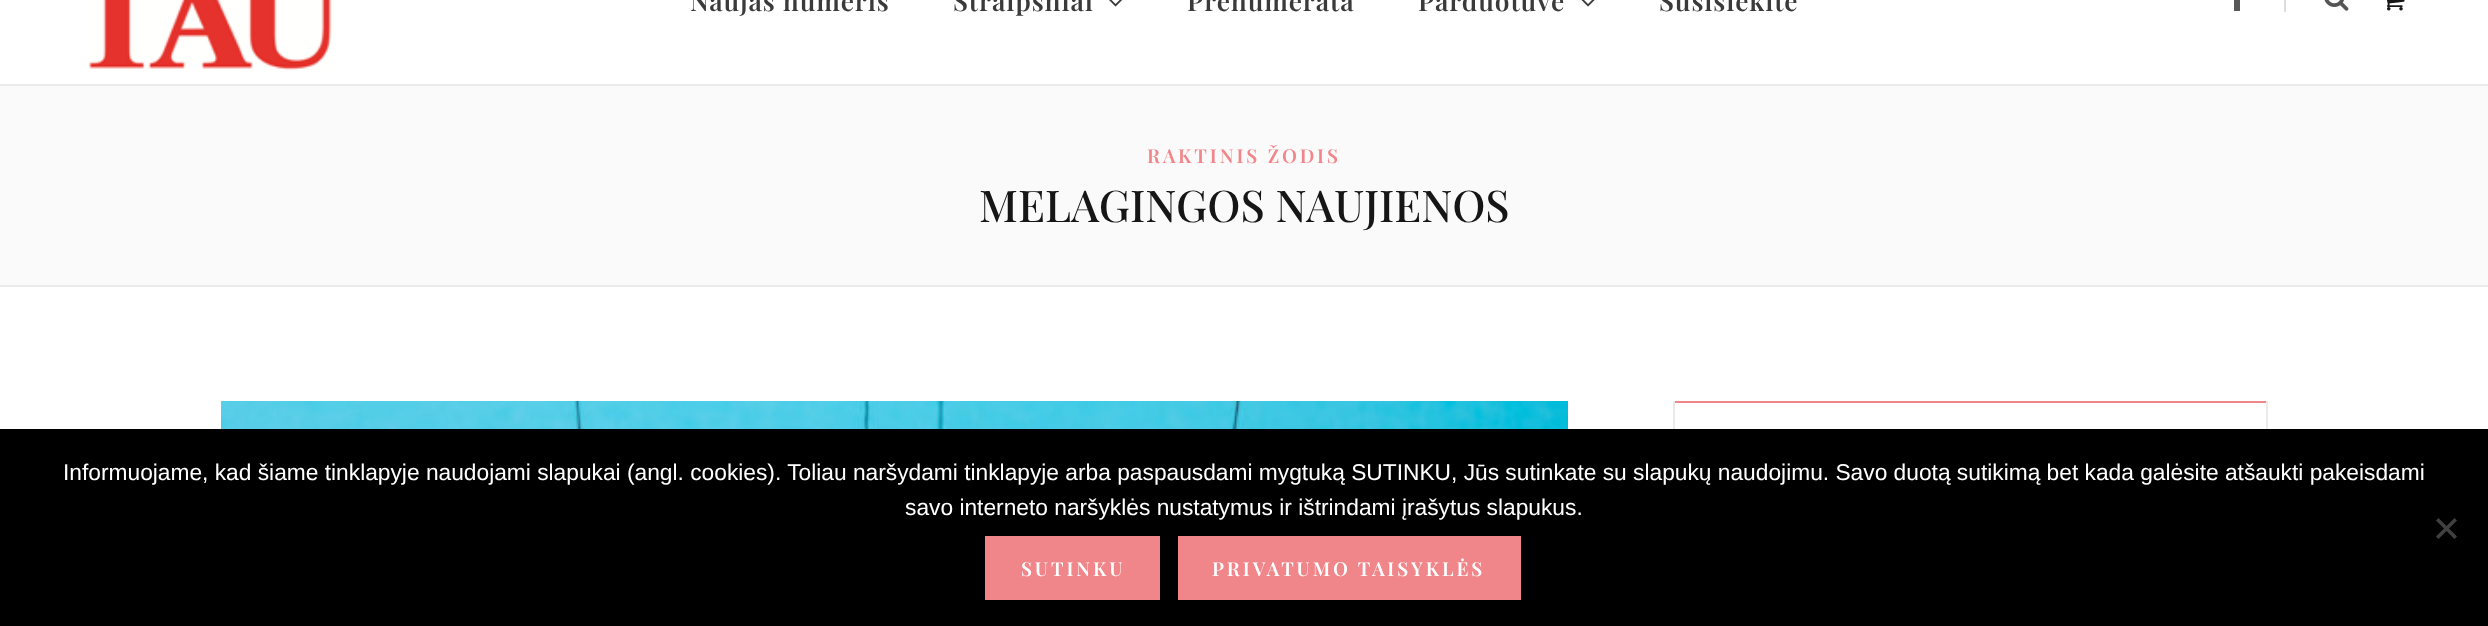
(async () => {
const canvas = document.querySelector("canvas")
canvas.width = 2488
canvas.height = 626
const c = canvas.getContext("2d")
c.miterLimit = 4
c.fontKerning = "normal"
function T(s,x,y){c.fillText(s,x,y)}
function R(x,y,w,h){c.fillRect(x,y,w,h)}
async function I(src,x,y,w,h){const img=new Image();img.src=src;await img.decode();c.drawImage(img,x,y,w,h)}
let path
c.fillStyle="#fff"
R(0,0,2488,626)
c.fillStyle="#ebebeb"
R(0,84,2488,2)
await I("1.png",88,0,244,71)
c.letterSpacing="0.9px"
c.font="600 26.25px Playfair Display"
c.fillStyle="#3a3a3a"
T("Naujas numeris",690,11)
T("Straipsniai",953,11)
await I("2.png",1109,0,13,7)
T("Prenumerata",1187,11)
T("Parduotuvė",1418,11)
await I("3.png",1581,0,14,7)
T("Susisiekite",1659,11)
c.fillStyle="#585858"
R(2234,0,6,11)
c.fillStyle="#ddd"
R(2284,0,2,12)
await I("4.png",2324,0,25,11)
await I("5.png",2387,0,18,11)
c.fillStyle="#fafafa"
R(0,86,2488,199)
c.fillStyle="#ebebeb"
R(0,285,2488,2)
c.letterSpacing="2.9px"
c.font="600 19.25px Playfair Display"
c.fillStyle="#f1868a"
T("RAKTINIS ŽODIS",1147,163)
c.letterSpacing="0px"
c.font="500 43.75px Playfair Display"
c.fillStyle="#161616"
T("MELAGINGOS NAUJIENOS",979,222)
await I("6.png",221,401,1347,28)
c.fillStyle="#f1868a"
R(1673,401,595,2)
c.fillStyle="#ebebeb"
R(2266,401,2,28)
R(1673,401,2,28)
c.fillStyle="#000"
R(0,429,2488,197)
c.font="22.75px Liberation Sans"
c.fillStyle="#fff"
T("Informuojame, kad šiame tinklapyje naudojami slapukai (angl. cookies). Toliau naršydami tinklapyje arba paspausdami mygtuką SUTINKU, Jūs sutinkate su slapukų naudojimu. Savo duotą sutikimą bet kada galėsite atšaukti pakeisdami",63,480)
T("savo interneto naršyklės nustatymus ir ištrindami įrašytus slapukus.",905,515)
c.fillStyle="#404040"
path = new Path2D("M2454.5 518l2.5 2.5l-18.5 18.5l-2.5-2.5z")
c.fill(path)
path = new Path2D("M2436 520.5l2.5-2.5l18.5 18.5l-2.5 2.5z")
c.fill(path)
c.fillStyle="#f1868a"
R(985,536,175,64)
c.letterSpacing="2.9px"
c.font="600 19.25px Playfair Display"
c.fillStyle="#fff"
T("SUTINKU",1021,576)
c.fillStyle="#f1868a"
R(1178,536,343,64)
c.fillStyle="#fff"
T("PRIVATUMO TAISYKLĖS",1212,576)
})()
